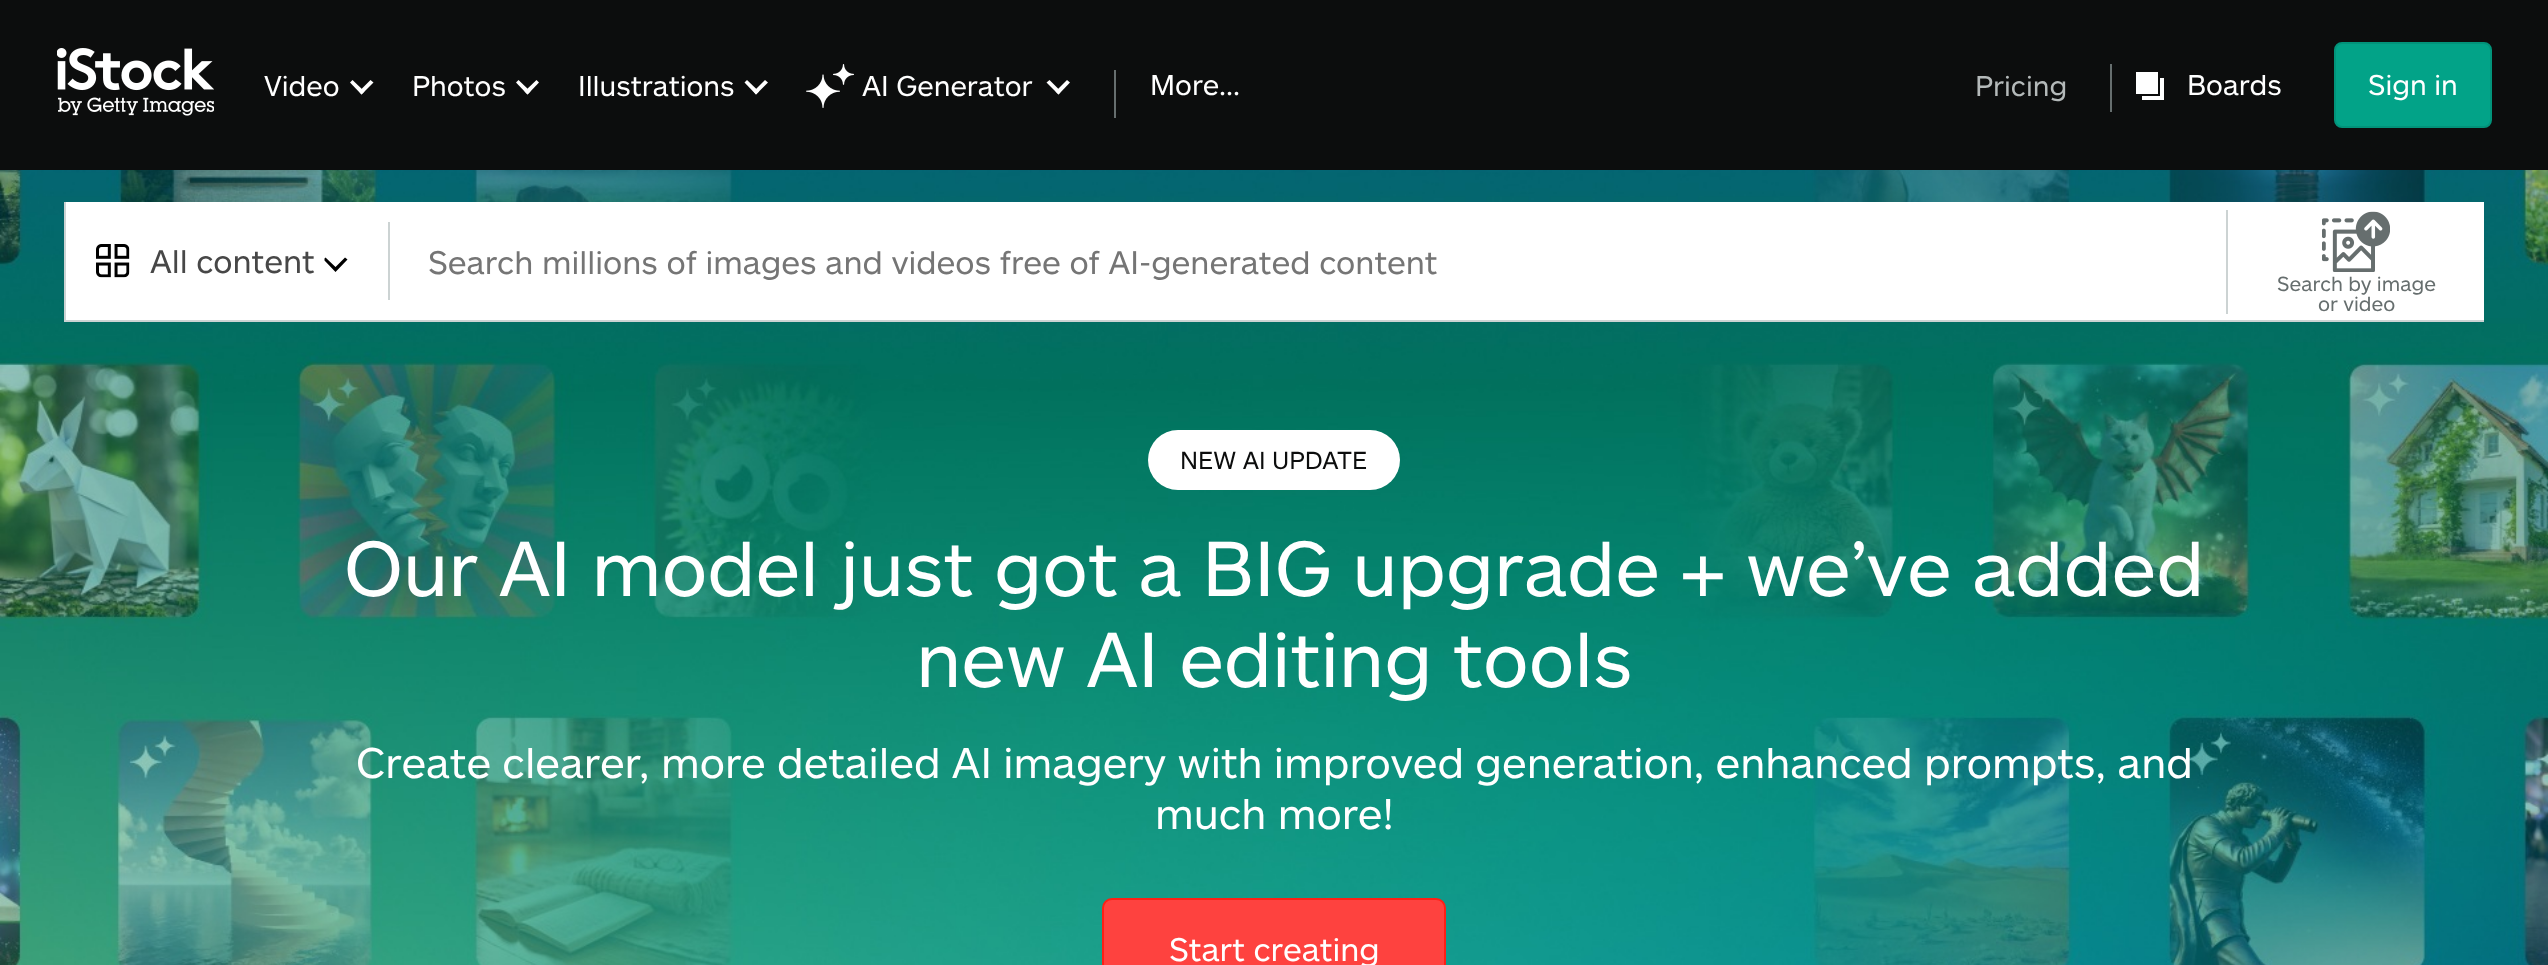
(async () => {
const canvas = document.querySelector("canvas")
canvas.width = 2548
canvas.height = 965
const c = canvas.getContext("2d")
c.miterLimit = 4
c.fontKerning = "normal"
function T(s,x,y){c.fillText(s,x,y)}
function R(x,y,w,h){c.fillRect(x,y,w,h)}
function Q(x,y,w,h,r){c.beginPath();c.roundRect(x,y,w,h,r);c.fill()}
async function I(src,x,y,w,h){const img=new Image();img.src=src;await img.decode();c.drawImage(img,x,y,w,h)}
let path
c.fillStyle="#0c0d0d"
R(0,0,2548,965)
await I("1.png",57,48,157,68)
c.font="28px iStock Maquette"
c.fillStyle="#fff"
T("Video",264,96)
path = new Path2D("M359 91.5l11.5-11.5l3 2.5l-12 12z")
c.fill(path)
path = new Path2D("M350 82.5l2.5-2.5l12 11.5l-3 3z")
c.fill(path)
T("Photos",412,96)
path = new Path2D("M524.5 91.5l12-11.5l2.5 2.5l-11.5 12z")
c.fill(path)
path = new Path2D("M516 82.5l2.5-2.5l12 11.5l-3 3z")
c.fill(path)
T("Illustrations",578,96)
path = new Path2D("M753.5 91.5l11.5-11.5l3 2.5l-12 12z")
c.fill(path)
path = new Path2D("M744.5 82.5l2.5-2.5l12 11.5l-3 3z")
c.fill(path)
await I("2.png",806,64,48,44)
T("AI Generator",862,96)
path = new Path2D("M1055.5 91.5l11.5-11.5l3 2.5l-11.5 12z")
c.fill(path)
path = new Path2D("M1046.5 82.5l3-2.5l11.5 11.5l-2.5 3z")
c.fill(path)
c.fillStyle="#666e6e"
R(1114,70,2,48)
c.fillStyle="#fff"
T("More...",1150,95)
c.fillStyle="#b4b9b9"
T("Pricing",1975,96)
c.fillStyle="#666e6e"
R(2110,64,2,48)
c.fillStyle="#fff"
R(2136,72,22,22)
T("Boards",2187,95)
path = new Path2D("M2164 100h-22v-4h18v-18h4z")
c.fill(path)
c.fillStyle="#02a388"
c.beginPath()
c.roundRect(2335,43,156,84,7)
c.fill()
c.strokeStyle="#02937a"
c.lineWidth=2
c.stroke()
c.fillStyle="#fff"
T("Sign in",2368,95)
await I("3.png",0,170,2548,795)
c.fillStyle="#ccd3d3"
R(64,320,2420,2)
c.fillStyle="#fff"
R(66,202,2418,118)
c.fillStyle="#ccd3d3"
R(64,202,2,118)
await I("4.png",96,244,34,34)
c.font="32px iStock Maquette"
c.fillStyle="#474747"
T("All content",150,273)
c.fillStyle="#000"
path = new Path2D("M335.5 272l-11-11.5v-2l1-1l10 9.5l9.5-9.5l2.5 2z")
c.fill(path)
c.fillStyle="#ccd3d3"
R(388,222,2,78)
c.fillStyle="#757575"
T("Search millions of images and videos free of AI-generated content",428,274)
c.fillStyle="#ccd3d3"
R(2226,210,2,104)
await I("5.png",2322,211,68,61)
c.font="20px iStock Maquette"
c.fillStyle="#666e6e"
T("Search by image",2277,291)
T("or video",2318,311)
c.fillStyle="#fff"
Q(1148,430,252,60,30)
c.font="24px iStock Maquette"
c.fillStyle="#0c0d0d"
T("NEW AI UPDATE",1180,469)
c.font="76px iStock Maquette"
c.fillStyle="#fff"
T("Our AI model just got a BIG upgrade + we’ve added",344,596)
T("new AI editing tools",916,687)
c.font="42px iStock Maquette"
T("Create clearer, more detailed AI imagery with improved generation, enhanced prompts, and",356,778)
T("much more!",1155,829)
c.fillStyle="#fe423f"
c.beginPath()
c.roundRect(1103,899,342,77,9)
c.fill()
c.strokeStyle="#ff1f15"
c.stroke()
c.font="32px iStock Maquette"
c.fillStyle="#fff"
T("Start creating",1169,961)
})()
